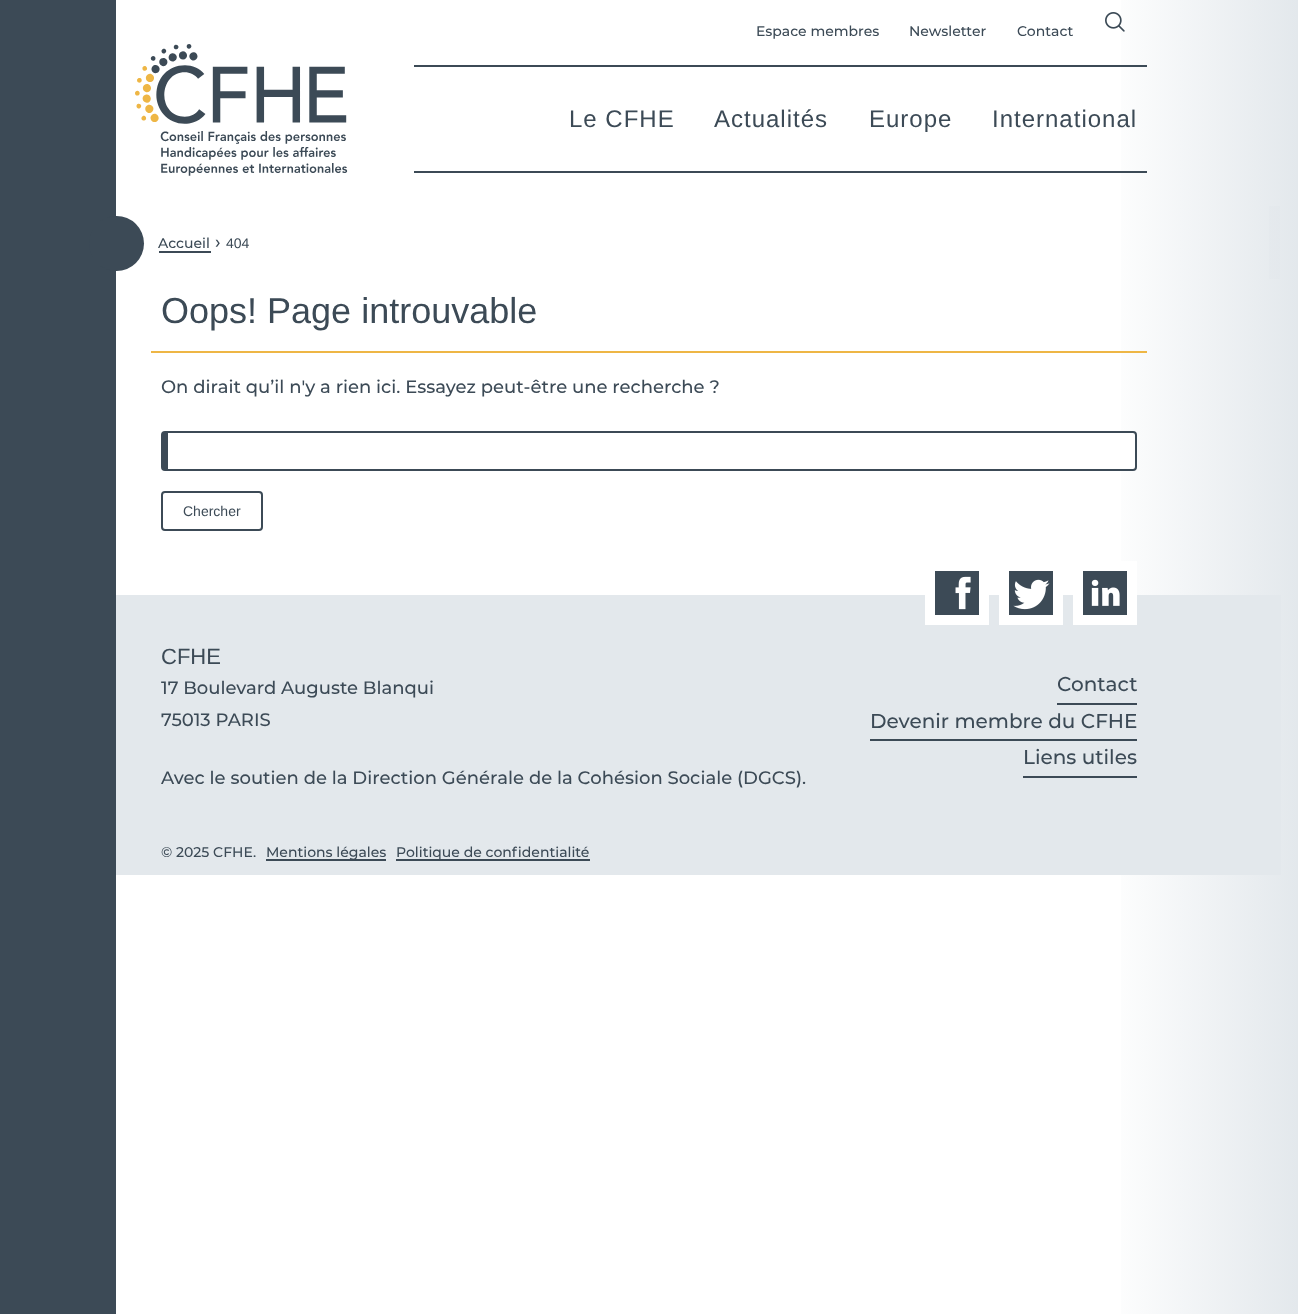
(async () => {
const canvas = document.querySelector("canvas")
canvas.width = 1298
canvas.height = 1314
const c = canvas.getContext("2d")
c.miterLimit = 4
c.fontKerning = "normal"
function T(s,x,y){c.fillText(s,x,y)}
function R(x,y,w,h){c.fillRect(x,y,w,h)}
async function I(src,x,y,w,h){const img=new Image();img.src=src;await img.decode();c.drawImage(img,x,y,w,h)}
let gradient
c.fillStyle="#fff"
R(0,0,1298,1314)
gradient = c.createLinearGradient(1298,657,0,657)
gradient.addColorStop(0,"#e3e8ec")
gradient.addColorStop(.15,"#fff")
gradient.addColorStop(1,"#fff")
c.fillStyle = gradient
R(1121,0,177,1314)
c.fillStyle="#3c4a56"
R(0,0,116,1314)
c.font="500 14px Montserrat"
T("Espace membres",756,36)
T("Newsletter",909,36)
T("Contact",1017,36)
await I("1.png",1105,12,20,20)
await I("2.png",135,44,213,132)
R(414,65,733,2)
R(414,171,733,2)
c.letterSpacing="1px"
c.font="24px Liberation Sans"
T("Le CFHE",569,127)
T("Actualités",714,127)
T("Europe",869,127)
T("International",992,127)
c.beginPath()
c.arc(116.5,243.5,27.5,0,7)
c.fill()
c.letterSpacing="0px"
c.font="500 14px Montserrat"
T("Accueil",158,248)
gradient = c.createLinearGradient(185,243,185,253)
gradient.addColorStop(0,"#fff")
gradient.addColorStop(.8,"#fff")
gradient.addColorStop(.8,"#3c4a56")
gradient.addColorStop(1,"#3c4a56")
c.fillStyle = gradient
R(159,251,52,2)
c.font="500 18px Montserrat"
c.fillStyle="#3c4a56"
T("›",215,248)
c.font="14px Liberation Sans"
T("404",226,248)
gradient = c.createLinearGradient(1298,243,1238,243)
gradient.addColorStop(0,"#e3e8ec")
gradient.addColorStop(.05,"#e3e8ec")
gradient.addColorStop(1,"#e3e8ec00")
c.fillStyle = gradient
R(1269,206,11,73)
c.fillStyle="#eeb645"
R(151,351,996,2)
c.font="36px Liberation Sans"
c.fillStyle="#3c4a56"
T("Oops! Page introuvable",161,323)
c.font="500 18px Montserrat"
T("On dirait qu’il n'y a rien ici. Essayez peut-être une recherche ?",161,393)
R(163,433,5,36)
c.fillStyle="#fff"
R(1121,433,14,36)
c.beginPath()
c.roundRect(162,432,974,38,3)
c.strokeStyle="#3c4a56"
c.lineWidth=2
c.stroke()
c.beginPath()
c.roundRect(162,492,100,38,3)
c.stroke()
c.font="14px Liberation Sans"
c.fillStyle="#3c4a56"
T("Chercher",183,516)
c.fillStyle="#e3e8ec"
R(116,595,1165,280)
c.fillStyle="#fff"
R(925,595,64,30)
await I("3.png",935,571,44,44)
R(999,595,64,30)
await I("4.png",1009,571,44,44)
R(1073,561,64,64)
await I("5.png",1083,571,44,44)
c.font="22px Liberation Sans"
c.fillStyle="#3c4a56"
T("CFHE",161,664)
c.font="500 18px Montserrat"
T("17 Boulevard Auguste Blanqui",161,694)
T("75013 PARIS",161,726)
T("Avec le soutien de la Direction Générale de la Cohésion Sociale (DGCS).",161,784)
gradient = c.createLinearGradient(1097,695,1097,705)
gradient.addColorStop(0,"#e3e8ec")
gradient.addColorStop(.8,"#e3e8ec")
gradient.addColorStop(.8,"#3c4a56")
gradient.addColorStop(1,"#3c4a56")
c.fillStyle = gradient
R(1057,703,80,2)
c.font="500 20px Montserrat"
c.fillStyle="#3c4a56"
T("Contact",1057,691)
gradient = c.createLinearGradient(1004,731,1004,741)
gradient.addColorStop(0,"#e3e8ec")
gradient.addColorStop(.8,"#e3e8ec")
gradient.addColorStop(.8,"#3c4a56")
gradient.addColorStop(1,"#3c4a56")
c.fillStyle = gradient
R(870,739,267,2)
c.fillStyle="#3c4a56"
T("Devenir membre du CFHE",870,728)
gradient = c.createLinearGradient(1080,768,1080,778)
gradient.addColorStop(0,"#e3e8ec")
gradient.addColorStop(.8,"#e3e8ec")
gradient.addColorStop(.8,"#3c4a56")
gradient.addColorStop(1,"#3c4a56")
c.fillStyle = gradient
R(1023,776,114,2)
c.fillStyle="#3c4a56"
T("Liens utiles",1023,764)
c.font="500 14px Montserrat"
T("© 2025 CFHE.",161,857)
gradient = c.createLinearGradient(326,851,326,861)
gradient.addColorStop(0,"#e3e8ec")
gradient.addColorStop(.8,"#e3e8ec")
gradient.addColorStop(.8,"#3c4a56")
gradient.addColorStop(1,"#3c4a56")
c.fillStyle = gradient
R(266,859,120,2)
c.fillStyle="#3c4a56"
T("Mentions légales",266,857)
gradient = c.createLinearGradient(493,851,493,861)
gradient.addColorStop(0,"#e3e8ec")
gradient.addColorStop(.8,"#e3e8ec")
gradient.addColorStop(.8,"#3c4a56")
gradient.addColorStop(1,"#3c4a56")
c.fillStyle = gradient
R(396,859,194,2)
c.fillStyle="#3c4a56"
T("Politique de confidentialité",396,857)
})()
